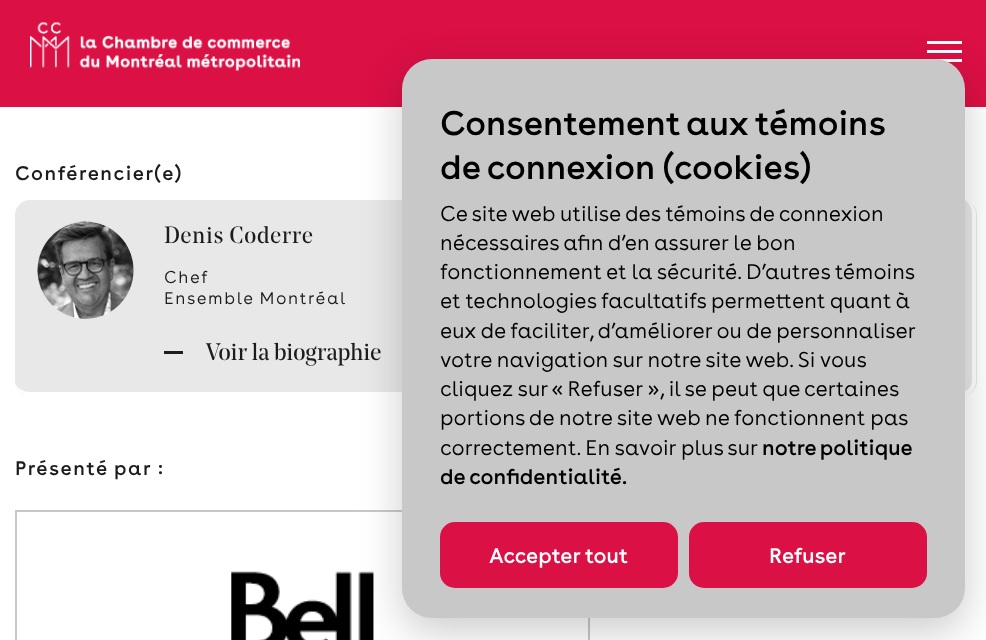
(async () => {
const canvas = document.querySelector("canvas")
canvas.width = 986
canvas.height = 640
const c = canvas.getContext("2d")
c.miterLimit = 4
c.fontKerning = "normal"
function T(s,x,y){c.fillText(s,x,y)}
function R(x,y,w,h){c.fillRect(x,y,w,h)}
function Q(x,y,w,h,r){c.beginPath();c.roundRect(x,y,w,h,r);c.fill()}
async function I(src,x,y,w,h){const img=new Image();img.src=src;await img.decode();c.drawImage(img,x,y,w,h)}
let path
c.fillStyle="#fff"
R(0,0,986,640)
c.fillStyle="#db1045"
R(0,0,986,107)
await I("1.png",30,22,270,49)
c.fillStyle="#fff"
R(927,50,35,3)
R(927,41,35,3)
R(927,59,35,3)
c.letterSpacing="1.5px"
c.font="20.75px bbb"
c.fillStyle="#1c1c1c"
T("Conférencier(e)",15,180)
c.fillStyle="#e8e8e8"
Q(15,200,962,196,15)
c.fillStyle="#fff"
path = new Path2D("M30 200h932c8 0 14 6 14 14v167c0 8-6 15-14 15h-932c-8 0-15-7-15-15v-167c0-8 7-14 15-14zm0 0h932c5 0 10 6 10 14v167c0 6-5 11-10 11h-932c-8 0-15-5-15-11v-167c0-8 7-14 15-14z")
c.fill(path,"evenodd")
await I("2.png",37,221,97,98)
c.letterSpacing="0.75px"
c.font="23.5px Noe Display"
c.fillStyle="#1c1c1c"
T("Denis Coderre",164,243)
c.letterSpacing="1.5px"
c.font="300 18px bbb"
T("Chef",164,283)
T("Ensemble Montréal",164,304)
R(164,351,19,3)
c.letterSpacing="0px"
c.font="24px Noe Display"
T("Voir la biographie",206,360)
c.letterSpacing="1.5px"
c.font="20.75px bbb"
T("Présenté par :",15,475)
c.strokeStyle="#c8c8c8"
c.lineWidth=2
c.strokeRect(16,511,573,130)
await I("3.png",231,571,143,69)
c.fillStyle="#02020333"
c.filter="blur(21px)"
c.beginPath()
c.roundRect(402,72,563,560,30)
c.fill()
c.filter="none"
c.fillStyle="#c8c8c8"
Q(402,59,563,559,30)
c.letterSpacing="0px"
c.wordSpacing="-1px"
c.font="36px bbb"
c.fillStyle="#000"
T("Consentement aux témoins",440,135)
c.wordSpacing="0px"
T("de connexion (cookies)",440,179)
c.font="300 22.5px bbb"
T("Ce site web utilise des témoins de connexion",440,221)
T("nécessaires afin d’en assurer le bon",440,250)
T("fonctionnement et la sécurité. D’autres témoins",440,279)
T("et technologies facultatifs permettent quant à",440,308)
T("eux de faciliter, d’améliorer ou de personnaliser",440,338)
T("votre navigation sur notre site web. Si vous",440,367)
T("cliquez sur « Refuser », il se peut que certaines",440,396)
T("portions de notre site web ne fonctionnent pas",440,425)
T("correctement. En savoir plus sur",440,455)
c.wordSpacing="-1px"
c.font="22.5px bbb"
T("notre politique",762,455)
c.wordSpacing="0px"
T("de confidentialité.",440,484)
c.fillStyle="#db1045"
Q(440,522,238,66,15)
c.fillStyle="#fff"
T("Accepter tout",489,563)
c.fillStyle="#db1045"
Q(689,522,238,66,15)
c.fillStyle="#fff"
T("Refuser",769,563)
})()
